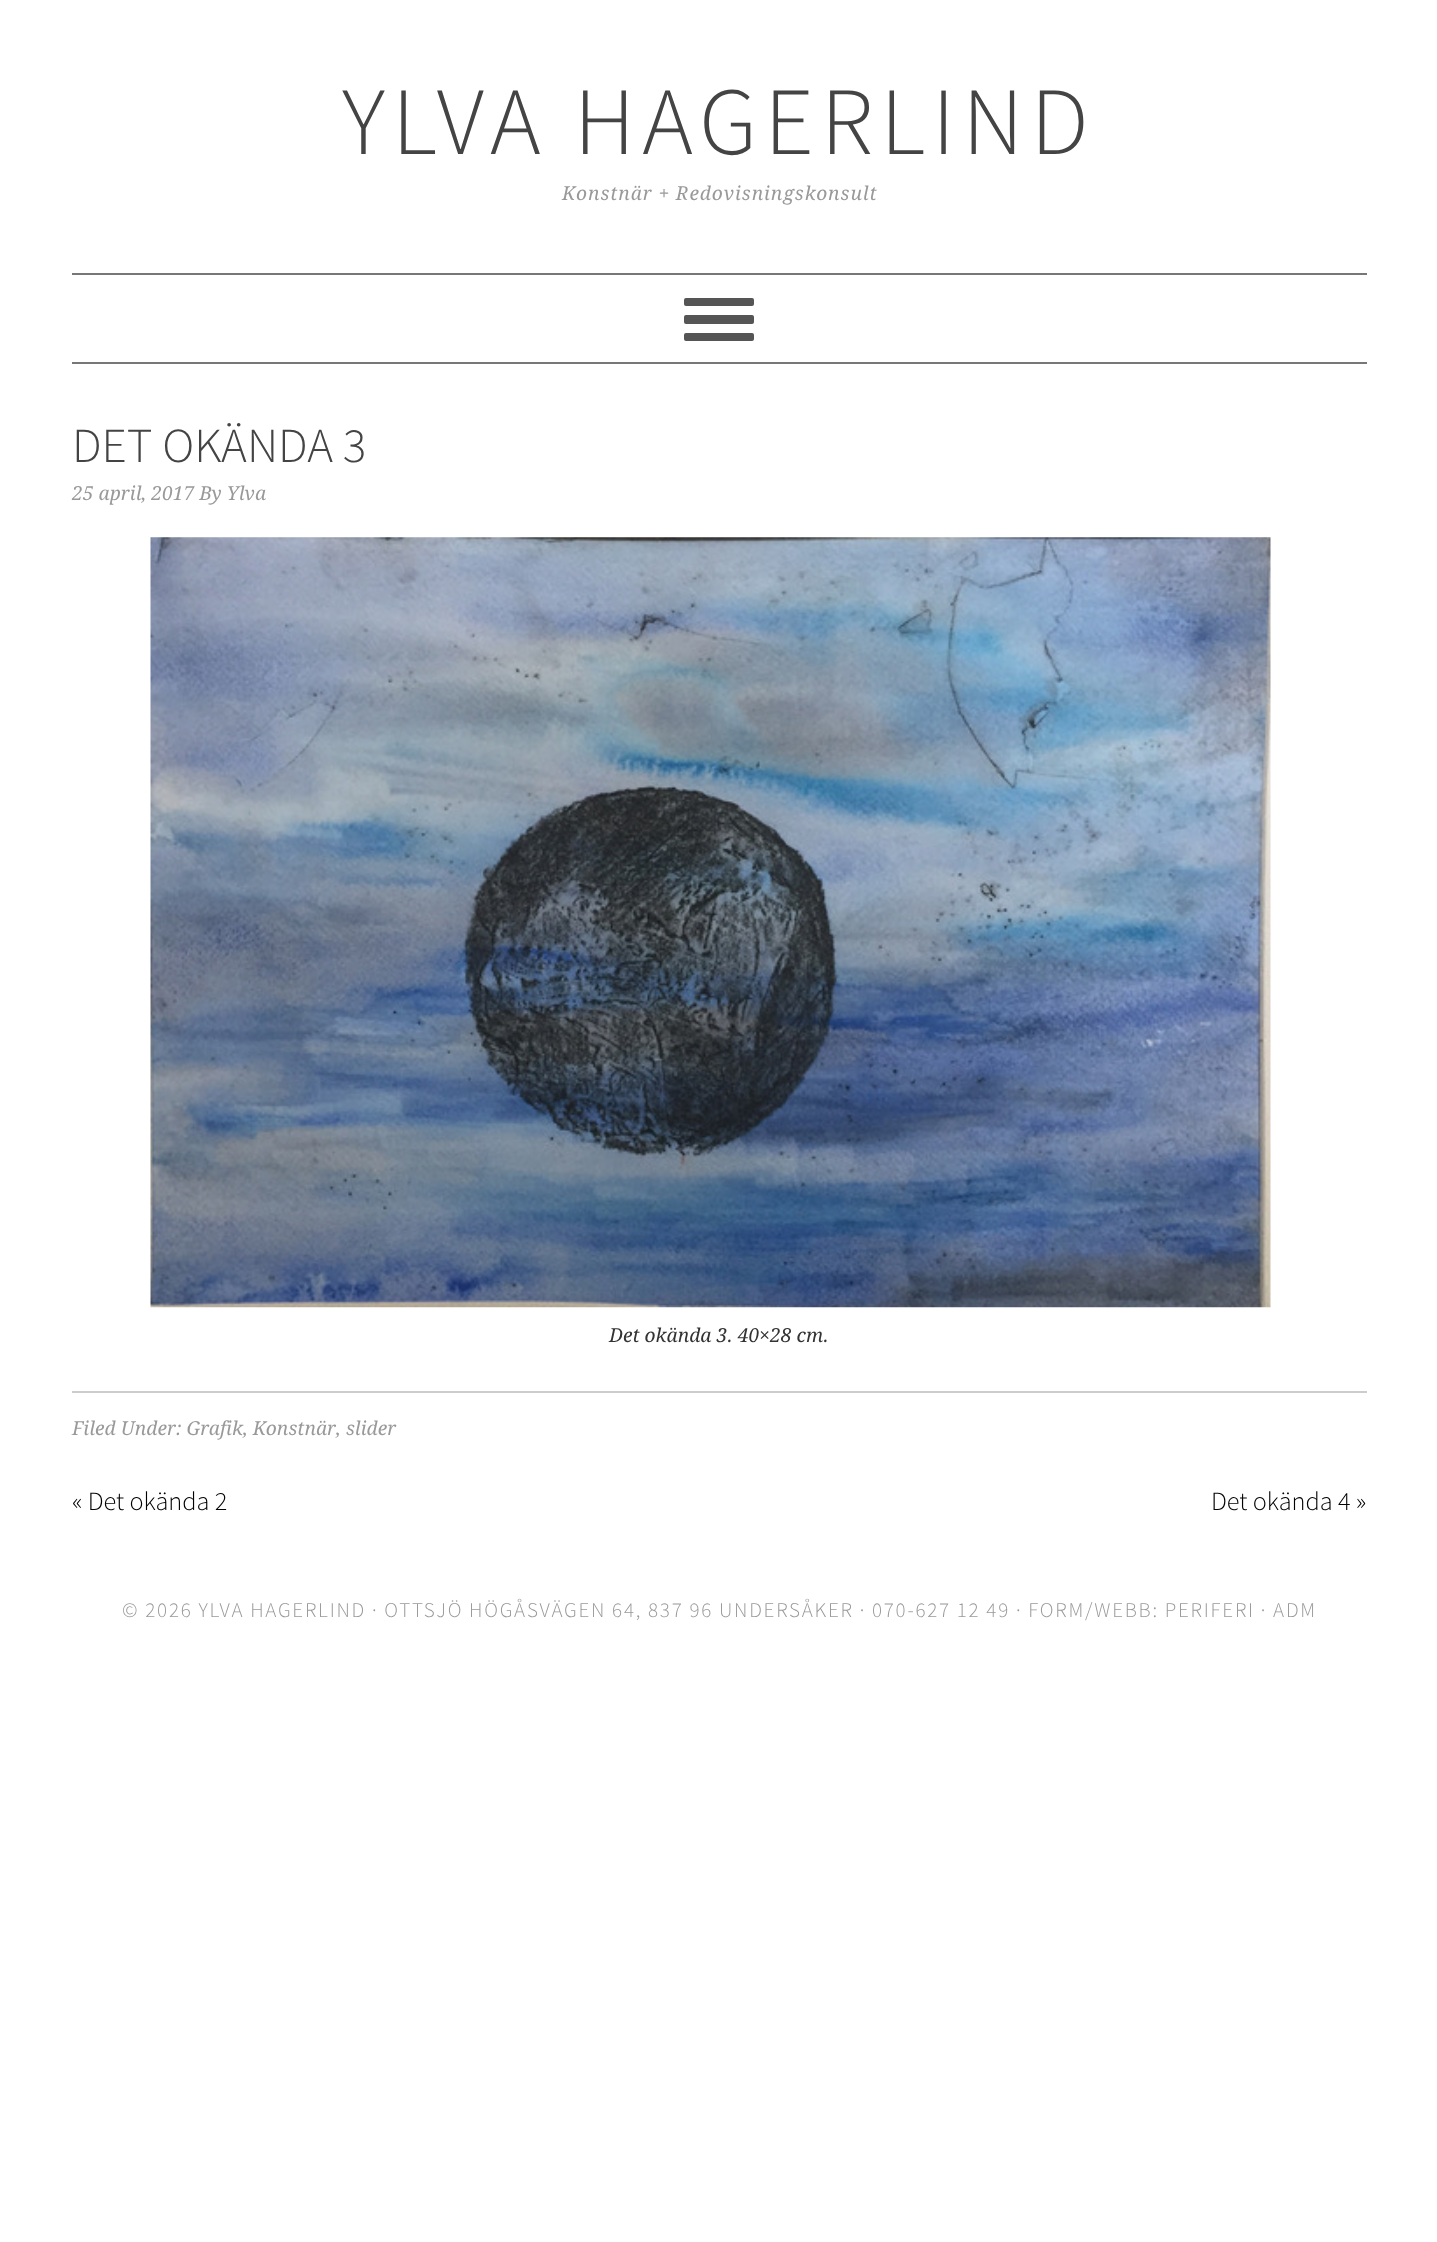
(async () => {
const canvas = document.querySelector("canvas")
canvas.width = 1437
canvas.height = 2242
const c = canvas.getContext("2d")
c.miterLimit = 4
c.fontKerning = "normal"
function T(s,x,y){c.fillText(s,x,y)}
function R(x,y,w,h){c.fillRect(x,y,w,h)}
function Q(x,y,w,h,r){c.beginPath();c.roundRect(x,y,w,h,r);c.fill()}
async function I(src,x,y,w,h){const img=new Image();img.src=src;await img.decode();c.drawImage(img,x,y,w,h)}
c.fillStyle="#fff"
R(0,0,1437,2242)
c.letterSpacing="7px"
c.font="300 96.25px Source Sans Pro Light"
c.fillStyle="#444"
T("YLVA HAGERLIND",342,154)
c.letterSpacing="0.9px"
c.font="italic 19.25px Droid Serif"
c.fillStyle="#999"
T("Konstnär + Redovisningskonsult",562,200)
c.fillStyle="#777"
R(72,273,1295,2)
R(72,362,1295,2)
c.fillStyle="#555"
Q(684,315,70,9,2)
Q(684,298,70,8,2)
Q(684,333,70,8,2)
c.letterSpacing="0px"
c.font="300 49px Source Sans Pro Light"
c.fillStyle="#444"
T("DET OKÄNDA 3",72,462)
c.font="italic 19.25px Droid Serif"
c.fillStyle="#999"
T("25 april, 2017 By Ylva",72,500)
await I("1.png",150,537,1121,771)
c.fillStyle="#333"
T("Det okända 3. 40×28 cm.",609,1342)
c.fillStyle="#ccc"
R(72,1391,1295,2)
c.fillStyle="#999"
T("Filed Under: Grafik, Konstnär, slider",72,1435)
c.font="300 26.25px Source Sans Pro Light"
c.fillStyle="#010101"
T("« Det okända 2",72,1510)
T("Det okända 4 »",1211,1510)
c.letterSpacing="1.75px"
c.font="300 21px Source Sans Pro Light"
c.fillStyle="#999"
T("© 2026 YLVA HAGERLIND · OTTSJÖ HÖGÅSVÄGEN 64, 837 96 UNDERSÅKER · 070-627 12 49 · FORM/WEBB: PERIFERI · ADM",122,1617)
})()
